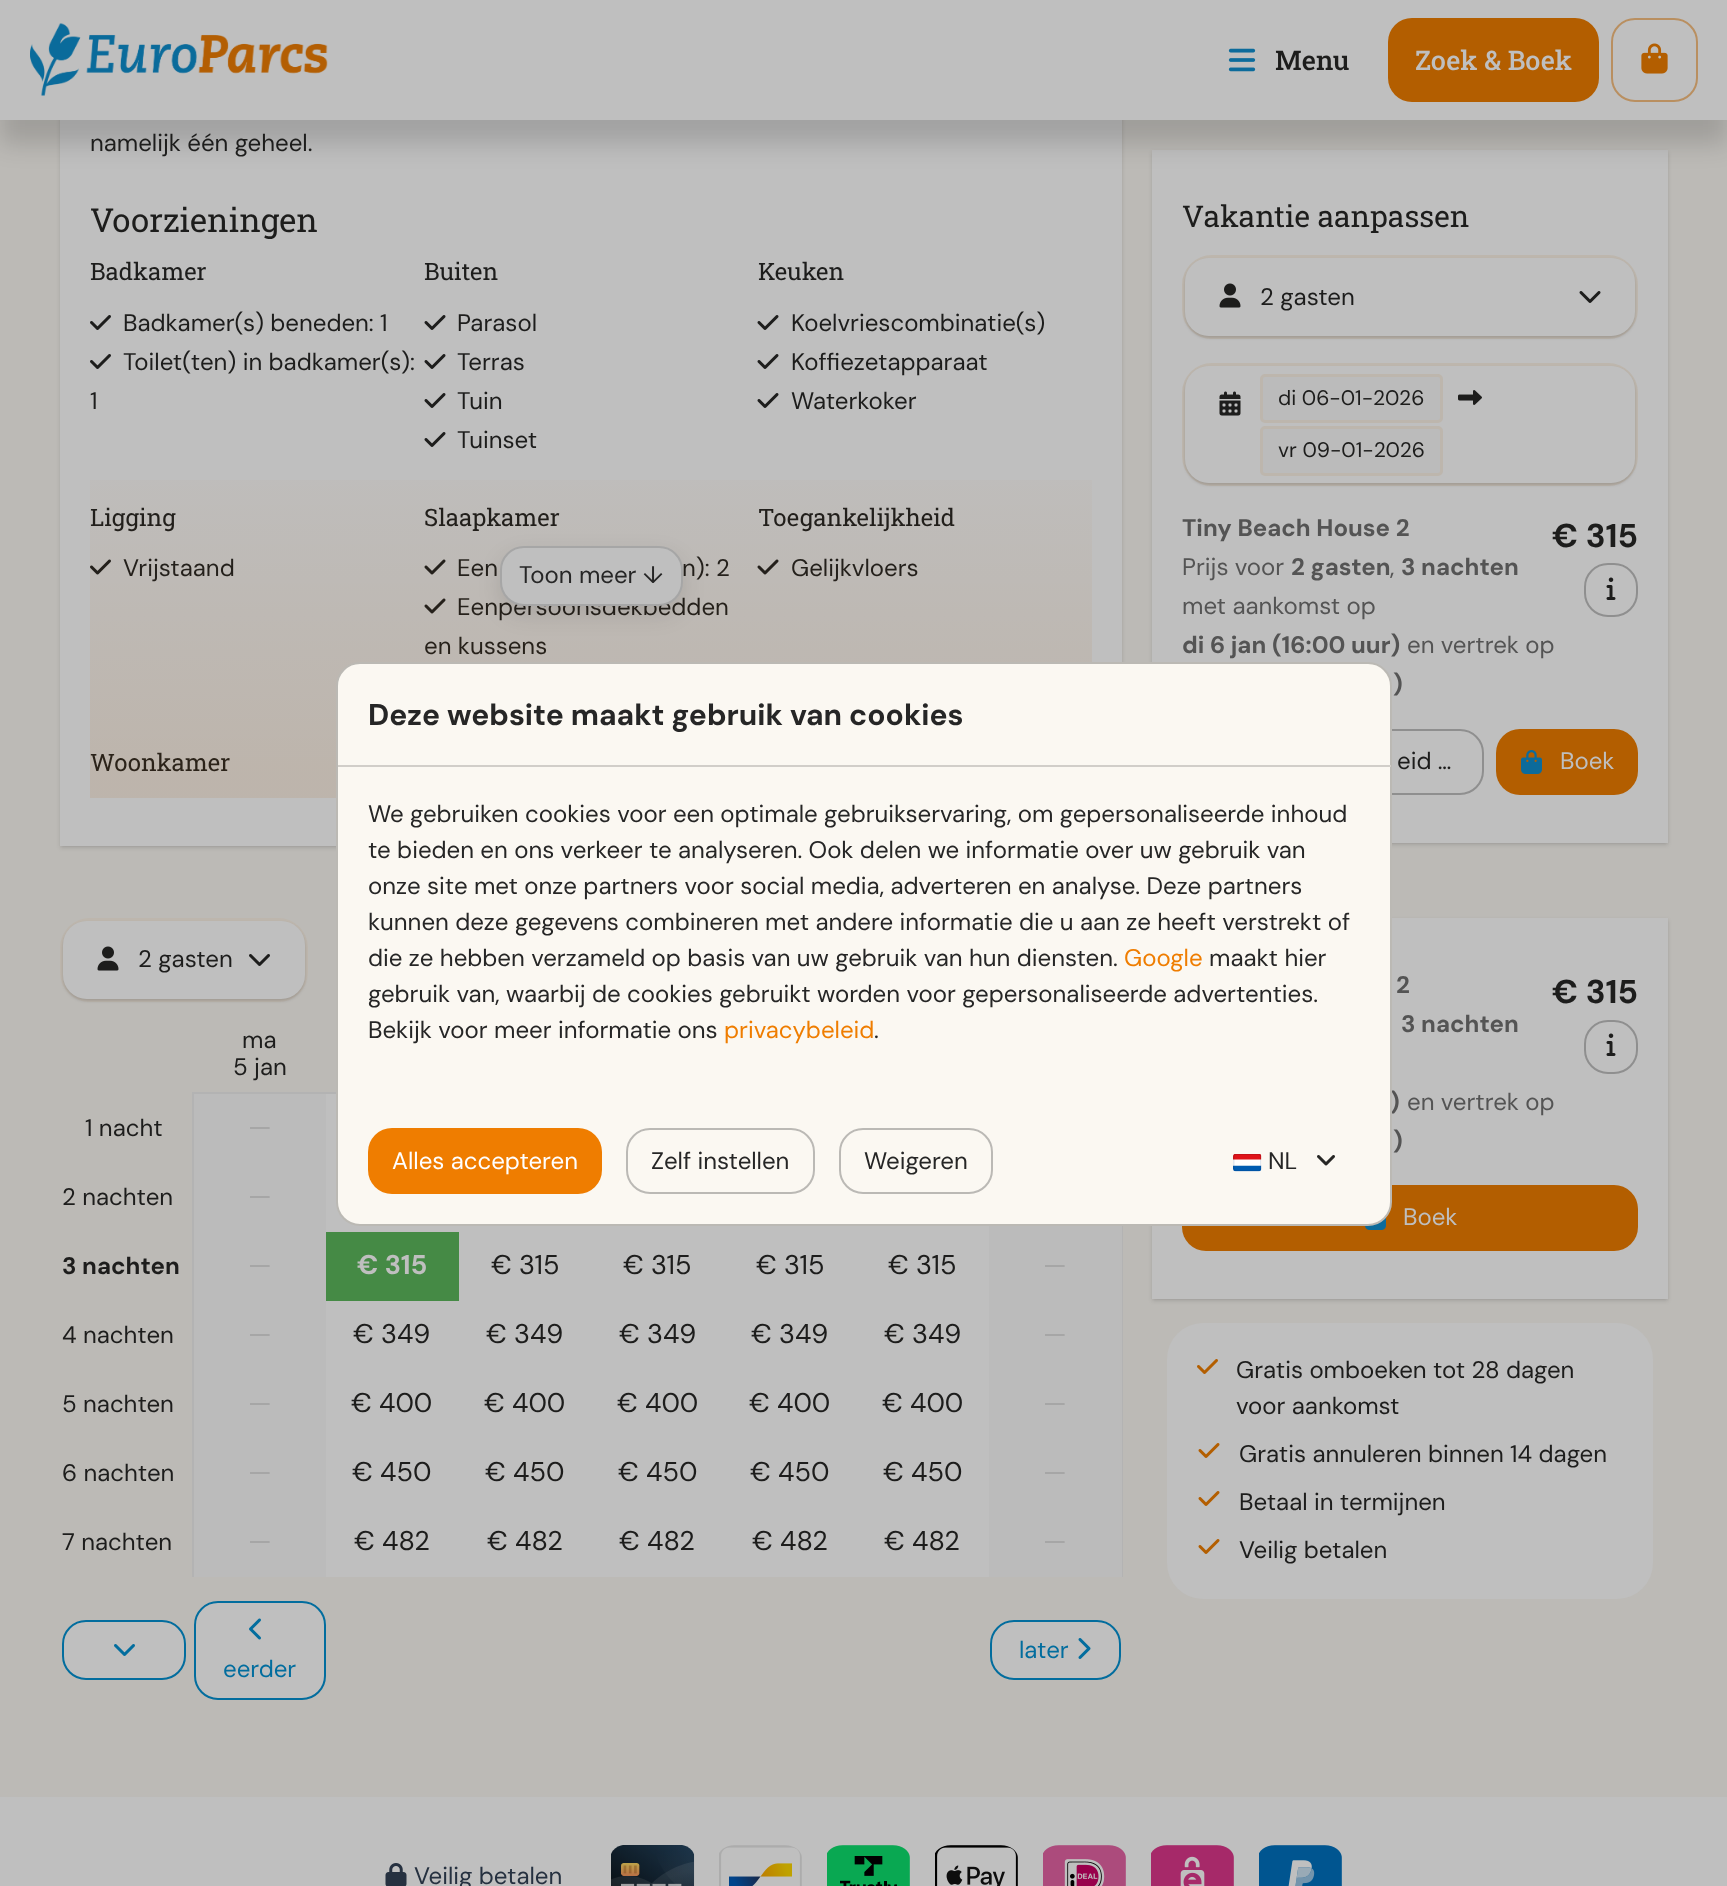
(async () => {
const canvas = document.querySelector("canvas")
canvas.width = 1727
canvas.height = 1886
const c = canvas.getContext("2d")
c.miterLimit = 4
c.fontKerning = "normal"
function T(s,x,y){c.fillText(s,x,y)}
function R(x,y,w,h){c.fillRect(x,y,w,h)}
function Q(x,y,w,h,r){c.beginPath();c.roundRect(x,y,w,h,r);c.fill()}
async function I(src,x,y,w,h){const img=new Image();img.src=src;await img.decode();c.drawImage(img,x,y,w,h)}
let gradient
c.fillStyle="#bcbab6"
R(0,0,1727,1886)
c.fillStyle="#0000001a"
c.filter="blur(1.5px)"
c.beginPath()
c.rect(62,-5,1059,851)
c.fill()
c.filter="none"
c.filter="blur(2px)"
c.beginPath()
c.rect(60,-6,1062,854)
c.fill()
c.filter="none"
c.fillStyle="#bfbfbf"
R(60,120,1062,726)
c.fillStyle="#0000001a"
c.filter="blur(1.5px)"
c.beginPath()
c.rect(1154,153,513,690)
c.fill()
c.filter="none"
c.filter="blur(2px)"
c.beginPath()
c.rect(1152,152,516,693)
c.fill()
c.filter="none"
c.fillStyle="#bfbfbf"
R(1152,150,516,693)
c.fillStyle="#00000026"
c.filter="blur(12px)"
c.beginPath()
c.rect(0,24,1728,120)
c.fill()
c.filter="none"
c.fillStyle="#bfbfbf"
R(0,0,1727,120)
await I("1.png",30,23,298,73)
await I("2.png",1228,48,28,24)
c.font="500 27px Roboto Slab"
c.fillStyle="#1d1d1c"
T("Menu",1275,70)
c.fillStyle="#b35e00"
Q(1388,18,211,84,24)
c.fillStyle="#bfbfbf"
T("Zoek & Boek",1415,70)
c.beginPath()
c.roundRect(1612,19,85,82,23)
c.strokeStyle="#b98f60"
c.lineWidth=2
c.stroke()
await I("3.png",1641,43,27,31)
c.font="24px DM Sans"
c.fillStyle="#1d1d1c"
T("namelijk één geheel.",90,151)
c.font="33px Roboto Slab"
T("Voorzieningen",90,232)
c.font="24px Roboto Slab"
T("Badkamer",90,280)
await I("4.png",90,315,21,15)
c.font="24px DM Sans"
T("Badkamer(s) beneden: 1",123,331)
await I("4.png",90,354,21,15)
T("Toilet(ten) in badkamer(s):",123,370)
T("1",90,409)
c.font="24px Roboto Slab"
T("Buiten",424,280)
await I("5.png",424,315,22,15)
c.font="24px DM Sans"
T("Parasol",457,331)
await I("5.png",424,354,22,15)
T("Terras",457,370)
await I("5.png",424,393,22,15)
T("Tuin",457,409)
await I("5.png",424,432,22,15)
T("Tuinset",457,448)
c.font="24px Roboto Slab"
T("Keuken",758,280)
await I("5.png",757,315,22,15)
c.font="24px DM Sans"
T("Koelvriescombinatie(s)",791,331)
await I("5.png",757,354,22,15)
T("Koffiezetapparaat",791,370)
await I("5.png",757,393,22,15)
T("Waterkoker",791,409)
c.font="24px Roboto Slab"
T("Ligging",90,526)
await I("6.png",90,559,21,16)
c.font="24px DM Sans"
T("Vrijstaand",123,576)
c.font="24px Roboto Slab"
T("Slaapkamer",424,526)
await I("7.png",424,559,22,16)
c.font="24px DM Sans"
T("Een",457,576)
T("n): 2",682,576)
await I("7.png",424,598,22,16)
T("Eenpersoonsdekbedden",457,615)
T("en kussens",424,654)
c.font="24px Roboto Slab"
T("Toegankelijkheid",758,526)
await I("7.png",757,559,22,16)
c.font="24px DM Sans"
T("Gelijkvloers",791,576)
c.font="24px Roboto Slab"
T("Woonkamer",90,771)
gradient = c.createLinearGradient(591,354,591,798)
gradient.addColorStop(.1,"#ad590000")
gradient.addColorStop(.95,"#ad59001a")
c.fillStyle = gradient
R(90,480,1002,318)
c.fillStyle="#0000001a"
c.filter="blur(11px)"
c.beginPath()
c.roundRect(500,555,183,60,24)
c.fill()
c.filter="none"
c.fillStyle="#bfbfbf"
c.beginPath()
c.roundRect(501,547,181,58,23)
c.fill()
c.strokeStyle="#a6a6a6"
c.stroke()
c.font="24px DM Sans"
c.fillStyle="#262626"
T("Toon meer ↓",519,583)
c.font="30px Roboto Slab"
c.fillStyle="#1d1d1c"
T("Vakantie aanpassen",1182,227)
c.beginPath()
c.roundRect(1183.5,256.5,453,81,28.5)
c.strokeStyle="#bdb6ad"
c.lineWidth=3
c.stroke()
c.fillStyle="#00000026"
c.filter="blur(1.5px)"
c.beginPath()
c.roundRect(1185,260,450,78,24)
c.fill()
c.filter="none"
c.fillStyle="#bfbfbf"
Q(1185,258,450,78,24)
await I("8.png",1219,283,22,25)
c.font="24px DM Sans"
c.fillStyle="#1d1d1c"
T("2 gasten",1260,305)
await I("9.png",1579,291,22,12)
c.beginPath()
c.roundRect(1183.5,364.5,453,120,28.5)
c.stroke()
c.fillStyle="#00000026"
c.filter="blur(1.5px)"
c.beginPath()
c.roundRect(1185,368,450,117,24)
c.fill()
c.filter="none"
c.fillStyle="#bfbfbf"
Q(1185,366,450,117,24)
await I("10.png",1219,391,22,25)
c.fillStyle="#bbb"
c.beginPath()
c.roundRect(1261.5,375.5,180,46,3.5)
c.fill()
c.stroke()
c.font="21px DM Sans"
c.fillStyle="#1d1d1c"
T("di 06-01-2026",1278,405)
await I("11.png",1458,390,24,15)
c.fillStyle="#bbb"
c.beginPath()
c.roundRect(1261.5,427.5,180,47,3.5)
c.fill()
c.stroke()
c.fillStyle="#1d1d1c"
T("vr 09-01-2026",1278,457)
c.font="bold 24px DM Sans"
c.fillStyle="#545454"
T("Tiny Beach House 2",1182,536)
c.font="bold 33px DM Sans"
c.fillStyle="#1d1d1c"
T("€ 315",1552,547)
c.beginPath()
c.roundRect(1585,564,52,52,23)
c.strokeStyle="#8f8f8f"
c.lineWidth=2
c.stroke()
await I("12.png",1606,577,10,23)
c.font="24px DM Sans"
c.fillStyle="#545454"
T("Prijs voor",1182,575)
c.font="bold 24px DM Sans"
T("2 gasten",1291,575)
c.font="24px DM Sans"
T(",",1390,575)
c.font="bold 24px DM Sans"
T("3 nachten",1401,575)
c.font="24px DM Sans"
T("met aankomst op",1182,614)
c.font="bold 24px DM Sans"
T("di 6 jan (16:00 uur)",1182,653)
c.font="24px DM Sans"
T("en vertrek op",1407,653)
c.font="bold 24px DM Sans"
T(")",1393,692)
c.beginPath()
c.roundRect(1183,730,300,64,23)
c.stroke()
c.font="24px DM Sans"
c.fillStyle="#1d1d1c"
T("eid …",1397,769)
c.fillStyle="#b35e00"
Q(1496,729,142,66,24)
await I("13.png",1521,750,21,24)
c.fillStyle="#bfbfbf"
T("Boek",1560,769)
c.beginPath()
c.roundRect(61.5,919.5,245,81,28.5)
c.strokeStyle="#bdb6ad"
c.lineWidth=3
c.stroke()
c.fillStyle="#00000026"
c.filter="blur(1.5px)"
c.beginPath()
c.roundRect(63,923,242,78,24)
c.fill()
c.filter="none"
c.fillStyle="#bfbfbf"
Q(63,921,242,78,24)
await I("8.png",97,946,22,25)
c.fillStyle="#1d1d1c"
T("2 gasten",138,967)
await I("14.png",249,954,21,12)
T("ma",242,1048)
T("5 jan",233,1075)
T("1 nacht",85,1136)
c.fillStyle="#b3b3b3"
R(192,1092,144,2)
c.fillStyle="#bfbfbf"
R(326,1094,10,69)
c.fillStyle="#b3b3b3"
R(192,1161,2,416)
R(192,1092,2,71)
c.fillStyle="#bbb"
R(194,1094,132,483)
c.font="27px DM Sans"
c.fillStyle="#a6a6a6"
T("—",248,1136)
c.font="24px DM Sans"
c.fillStyle="#1d1d1c"
T("2 nachten",62,1205)
c.font="27px DM Sans"
c.fillStyle="#a6a6a6"
T("—",248,1205)
c.fillStyle="#bfbfbf"
R(326,1163,133,69)
R(459,1226,530,6)
c.fillStyle="#bbb"
R(989,1226,133,351)
c.font="bold 24px DM Sans"
c.fillStyle="#1d1d1c"
T("3 nachten",62,1274)
c.font="27px DM Sans"
c.fillStyle="#a6a6a6"
T("—",248,1274)
c.fillStyle="#458a45"
R(326,1232,133,69)
c.font="bold 27px DM Sans"
c.fillStyle="#bfbfbf"
T("€ 315",357,1274)
R(459,1232,530,69)
c.font="27px DM Sans"
c.fillStyle="#1d1d1c"
T("€ 315",491,1274)
T("€ 315",623,1274)
T("€ 315",756,1274)
T("€ 315",888,1274)
c.fillStyle="#a6a6a6"
T("—",1043,1274)
c.font="24px DM Sans"
c.fillStyle="#1d1d1c"
T("4 nachten",62,1343)
c.font="27px DM Sans"
c.fillStyle="#a6a6a6"
T("—",248,1343)
c.fillStyle="#bfbfbf"
R(326,1301,663,69)
c.fillStyle="#1d1d1c"
T("€ 349",353,1343)
T("€ 349",486,1343)
T("€ 349",619,1343)
T("€ 349",751,1343)
T("€ 349",884,1343)
c.fillStyle="#a6a6a6"
T("—",1043,1343)
c.font="24px DM Sans"
c.fillStyle="#1d1d1c"
T("5 nachten",62,1412)
c.font="27px DM Sans"
c.fillStyle="#a6a6a6"
T("—",248,1412)
c.fillStyle="#bfbfbf"
R(326,1370,663,69)
c.fillStyle="#1d1d1c"
T("€ 400",351,1412)
T("€ 400",484,1412)
T("€ 400",617,1412)
T("€ 400",749,1412)
T("€ 400",882,1412)
c.fillStyle="#a6a6a6"
T("—",1043,1412)
c.font="24px DM Sans"
c.fillStyle="#1d1d1c"
T("6 nachten",62,1481)
c.font="27px DM Sans"
c.fillStyle="#a6a6a6"
T("—",248,1481)
c.fillStyle="#bfbfbf"
R(326,1439,663,69)
c.fillStyle="#1d1d1c"
T("€ 450",352,1481)
T("€ 450",485,1481)
T("€ 450",618,1481)
T("€ 450",750,1481)
T("€ 450",883,1481)
c.fillStyle="#a6a6a6"
T("—",1043,1481)
c.font="24px DM Sans"
c.fillStyle="#1d1d1c"
T("7 nachten",62,1550)
c.font="27px DM Sans"
c.fillStyle="#a6a6a6"
T("—",248,1550)
c.fillStyle="#bfbfbf"
R(326,1508,663,69)
c.fillStyle="#1d1d1c"
T("€ 482",354,1550)
T("€ 482",487,1550)
T("€ 482",619,1550)
T("€ 482",752,1550)
T("€ 482",884,1550)
c.fillStyle="#b3b3b3"
R(1122,1226,1,351)
c.fillStyle="#a6a6a6"
T("—",1043,1550)
c.fillStyle="#bfbfbf"
c.beginPath()
c.roundRect(63,1621,122,58,23)
c.fill()
c.strokeStyle="#026d9e"
c.lineWidth=2
c.stroke()
await I("15.png",114,1644,21,12)
c.beginPath()
c.roundRect(991,1621,129,58,23)
c.fill()
c.stroke()
c.font="24px DM Sans"
c.fillStyle="#026d9e"
T("later",1019,1658)
await I("16.png",1078,1638,13,21)
c.fillStyle="#bfbfbf"
c.beginPath()
c.roundRect(195,1602,130,97,23)
c.fill()
c.stroke()
await I("17.png",249,1618,12,22)
c.fillStyle="#026d9e"
T("eerder",223,1677)
c.fillStyle="#0000001a"
c.filter="blur(1.5px)"
c.beginPath()
c.rect(1154,921,513,378)
c.fill()
c.filter="none"
c.filter="blur(2px)"
c.beginPath()
c.rect(1152,920,516,381)
c.fill()
c.filter="none"
c.fillStyle="#bfbfbf"
R(1152,918,516,381)
c.font="bold 24px DM Sans"
c.fillStyle="#545454"
T("2",1396,993)
c.font="bold 33px DM Sans"
c.fillStyle="#1d1d1c"
T("€ 315",1552,1003)
c.beginPath()
c.roundRect(1585,1021,52,52,23)
c.strokeStyle="#8f8f8f"
c.stroke()
await I("12.png",1606,1033,10,23)
c.font="bold 24px DM Sans"
c.fillStyle="#545454"
T("3 nachten",1401,1032)
T(")",1390,1110)
c.font="24px DM Sans"
T("en vertrek op",1407,1110)
c.font="bold 24px DM Sans"
T(")",1393,1149)
c.fillStyle="#b35e00"
Q(1182,1185,456,66,24)
await I("18.png",1365,1217,21,13)
c.font="24px DM Sans"
c.fillStyle="#bfbfbf"
T("Boek",1403,1225)
Q(1167,1323,486,276,36)
await I("19.png",1197,1359,21,15)
c.fillStyle="#1d1d1c"
T("Gratis omboeken tot 28 dagen",1236,1378)
T("voor aankomst",1236,1414)
await I("20.png",1198,1443,22,15)
T("Gratis annuleren binnen 14 dagen",1239,1462)
await I("20.png",1198,1491,22,15)
T("Betaal in termijnen",1239,1510)
await I("20.png",1198,1539,22,15)
T("Veilig betalen",1239,1558)
c.fillStyle="#bfbfbf"
R(0,1797,1727,89)
await I("21.png",385,1863,22,23)
c.fillStyle="#263140"
T("Veilig betalen",414,1884)
await I("22.png",611,1845,84,41)
await I("23.png",719,1845,83,41)
await I("24.png",827,1845,83,41)
await I("25.png",935,1845,83,41)
await I("26.png",1043,1845,83,41)
await I("27.png",1151,1845,83,41)
await I("28.png",1259,1845,83,41)
c.fillStyle="#fbf8f2"
c.beginPath()
c.roundRect(337,663,1054,562,23)
c.fill()
c.strokeStyle="#bbb9b4"
c.stroke()
c.fillStyle="#d1cec9"
R(338,765,1053,2)
c.font="bold 30px DM Sans"
c.fillStyle="#262626"
T("Deze website maakt gebruik van cookies",368,725)
c.font="24px DM Sans"
T("We gebruiken cookies voor een optimale gebruikservaring, om gepersonaliseerde inhoud",368,822)
T("te bieden en ons verkeer te analyseren. Ook delen we informatie over uw gebruik van",368,858)
T("onze site met onze partners voor social media, adverteren en analyse. Deze partners",368,894)
T("kunnen deze gegevens combineren met andere informatie die u aan ze heeft verstrekt of",368,930)
T("die ze hebben verzameld op basis van uw gebruik van hun diensten.",368,966)
c.fillStyle="#ef7d00"
T("Google",1124,966)
c.fillStyle="#262626"
T("maakt hier",1209,966)
T("gebruik van, waarbij de cookies gebruikt worden voor gepersonaliseerde advertenties.",368,1002)
T("Bekijk voor meer informatie ons",368,1038)
c.fillStyle="#ef7d00"
T("privacybeleid",724,1038)
c.fillStyle="#262626"
T(".",874,1038)
c.fillStyle="#ef7d00"
Q(368,1128,234,66,24)
c.fillStyle="#fff"
T("Alles accepteren",392,1169)
c.beginPath()
c.roundRect(627,1129,187,64,23)
c.strokeStyle="#bbb9b5"
c.stroke()
c.fillStyle="#262626"
T("Zelf instellen",651,1169)
c.beginPath()
c.roundRect(840,1129,152,64,23)
c.stroke()
T("Weigeren",864,1169)
await I("29.png",1233,1154,29,18)
T("NL",1268,1169)
await I("30.png",1317,1155,18,11)
})()
